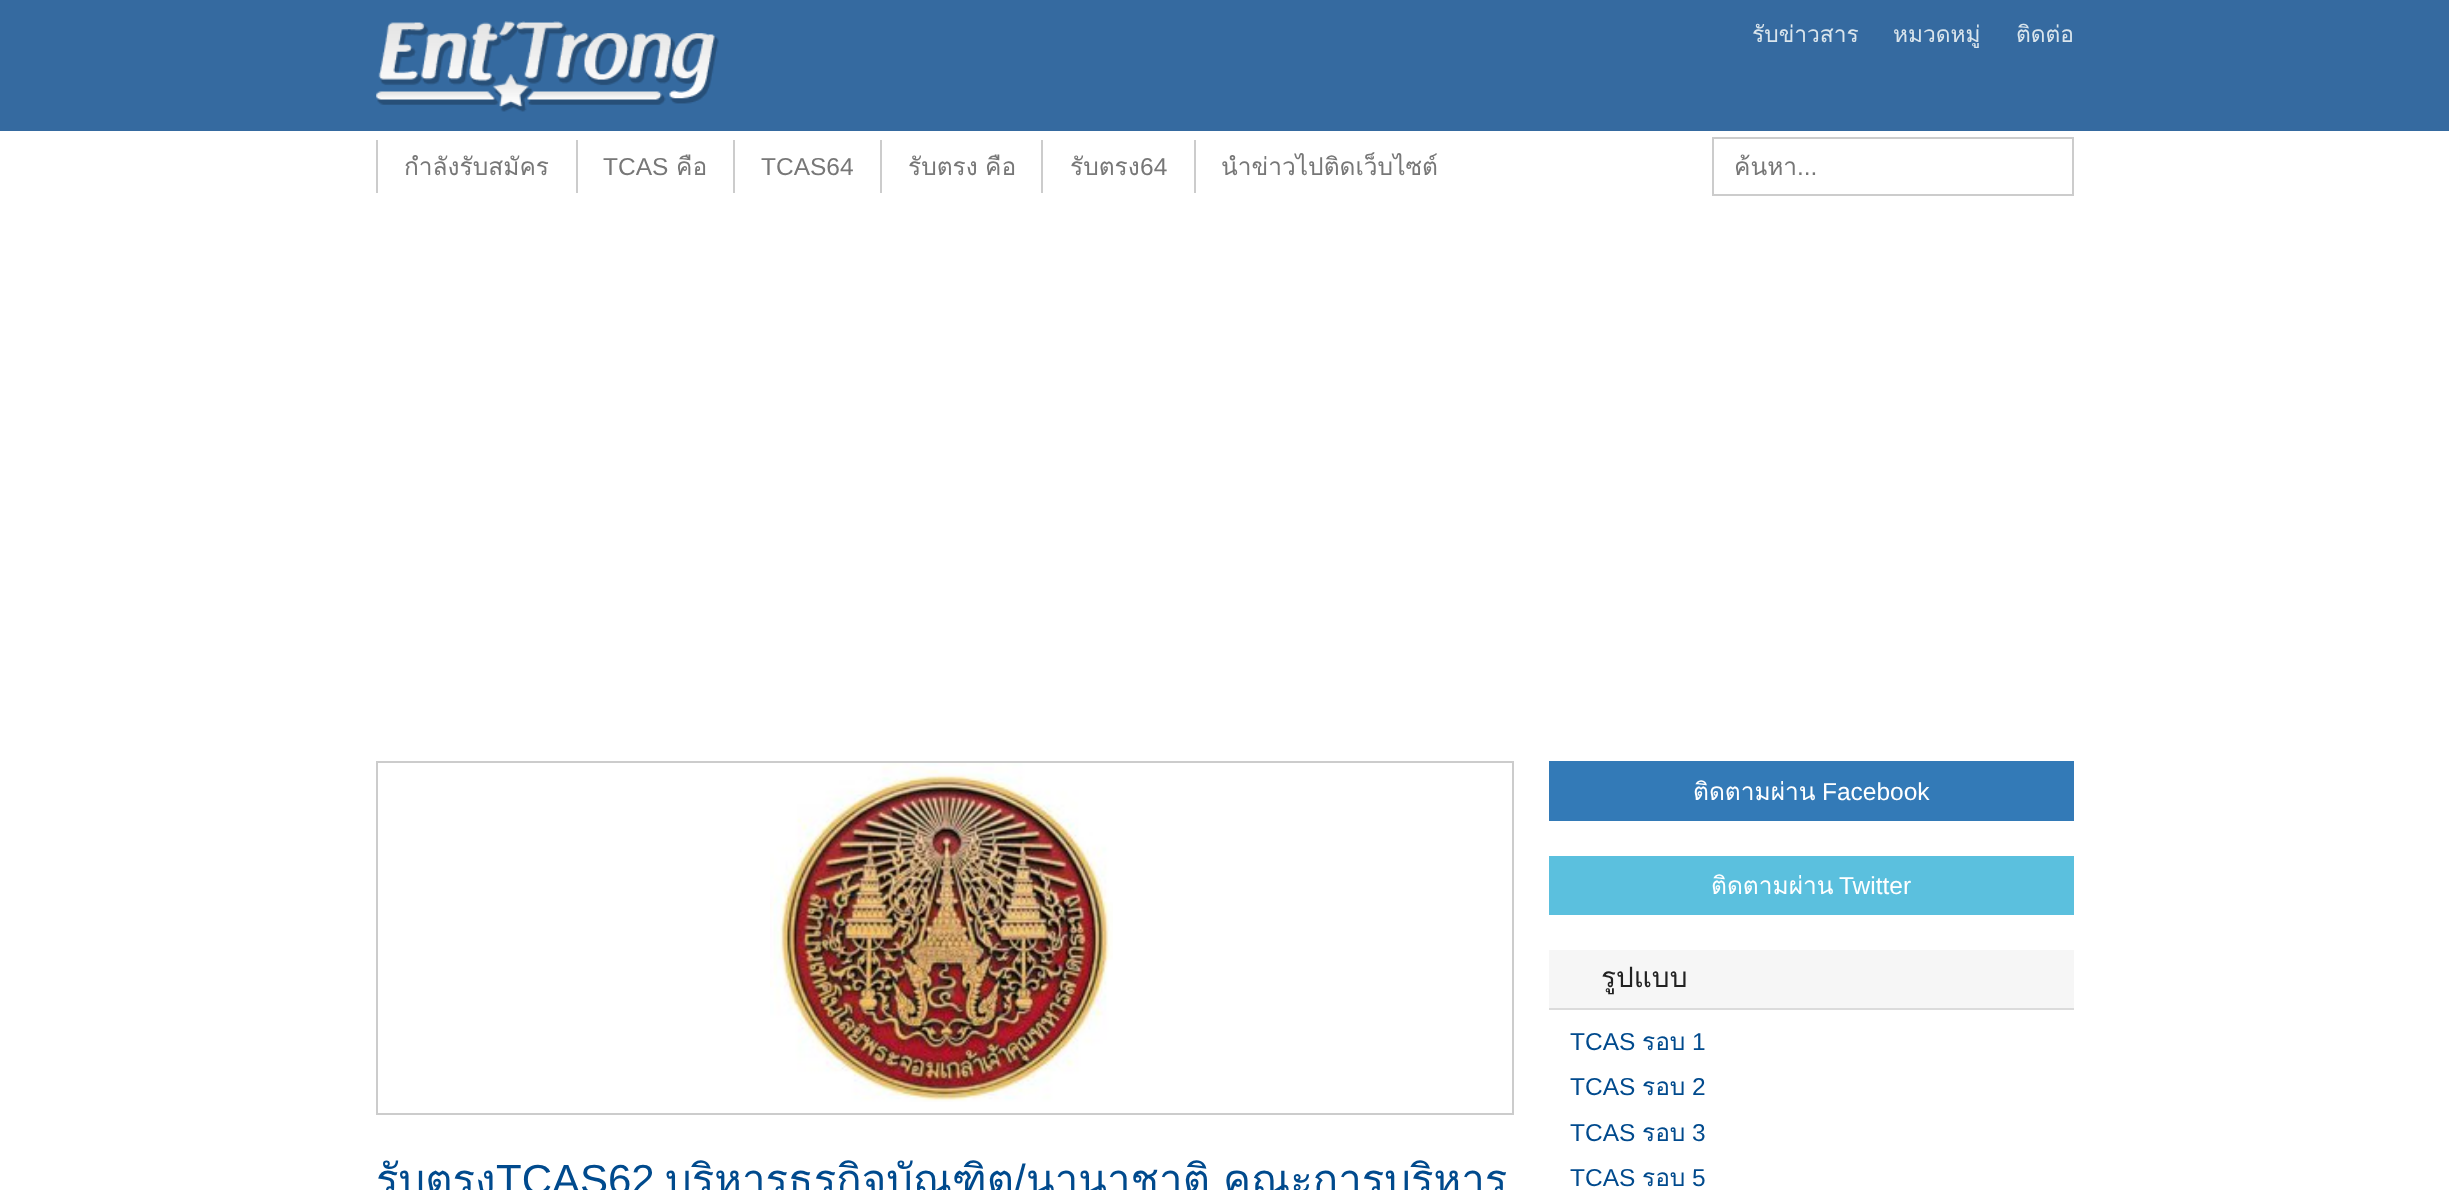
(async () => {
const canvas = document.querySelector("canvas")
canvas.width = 2449
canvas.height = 1190
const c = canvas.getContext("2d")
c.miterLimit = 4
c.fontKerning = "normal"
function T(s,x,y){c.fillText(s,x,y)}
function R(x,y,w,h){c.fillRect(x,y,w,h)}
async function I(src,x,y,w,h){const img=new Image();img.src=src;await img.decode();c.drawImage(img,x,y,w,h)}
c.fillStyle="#fff"
R(0,0,2449,1190)
c.fillStyle="#356aa0"
R(0,0,2449,131)
await I("1.png",376,21,343,91)
c.font="22.75px Loma"
c.fillStyle="#dae5ec"
T("รับข่าวสาร",1752,42)
T("หมวดหมู่",1893,42)
T("ติดต่อ",2016,42)
c.fillStyle="#ccc"
R(376,140,2,53)
c.font="24.5px Loma"
c.fillStyle="#777"
T("กำลังรับสมัคร",404,175)
c.fillStyle="#ccc"
R(576,140,2,53)
c.font="24.5px Liberation Sans"
c.fillStyle="#777"
T("TCAS",603,175)
c.font="24.5px Loma"
T("คือ",676,175)
c.fillStyle="#ccc"
R(733,140,2,53)
c.font="24.5px Liberation Sans"
c.fillStyle="#777"
T("TCAS64",761,175)
c.fillStyle="#ccc"
R(880,140,2,53)
c.wordSpacing="-1px"
c.font="24.5px Loma"
c.fillStyle="#777"
T("รับตรง คือ",908,175)
c.fillStyle="#ccc"
R(1041,140,2,53)
c.wordSpacing="0px"
c.fillStyle="#777"
T("รับตรง",1070,175)
c.font="24.5px Liberation Sans"
T("64",1140,175)
c.fillStyle="#ccc"
R(1194,140,2,53)
c.font="24.5px Loma"
c.fillStyle="#777"
T("นำข่าวไปติดเว็บไซต์",1221,175)
c.strokeStyle="#ccc"
c.lineWidth=2
c.strokeRect(1713,138,360,57)
c.save()
c.beginPath()
c.rect(1734,147,317,39)
c.clip()
T("ค้นหา",1734,175)
c.restore()
c.font="24.5px Liberation Sans"
T("...",1797,175)
c.strokeRect(377,762,1136,352)
await I("2.png",770,763,343,339)
c.font="42px Loma"
c.fillStyle="#004a8d"
T("รับตรง",376,1194)
c.font="42px Liberation Sans"
T("TCAS62",496,1194)
c.font="42px Loma"
T("บริหารธุรกิจบัณฑิต",665,1194)
c.font="42px Liberation Sans"
T("/",1014,1194)
c.wordSpacing="-1px"
c.font="42px Loma"
T("นานาชาติ คณะการบริหาร",1026,1194)
c.fillStyle="#337ab7"
R(1549,761,525,60)
c.wordSpacing="0px"
c.font="24.5px Loma"
c.fillStyle="#fff"
T("ติดตามผ่าน",1693,800)
c.font="24.5px Liberation Sans"
T("Facebook",1822,800)
c.fillStyle="#5bc0de"
R(1549,856,525,59)
c.font="24.5px Loma"
c.fillStyle="#fff"
T("ติดตามผ่าน",1711,894)
c.font="24.5px Liberation Sans"
T("Twitter",1839,894)
c.fillStyle="#f6f6f6"
R(1549,950,525,58)
c.fillStyle="#dbdbdb"
R(1549,1008,525,2)
c.font="28px Loma"
c.fillStyle="#222"
T("รูปแบบ",1601,987)
c.font="24.5px Liberation Sans"
c.fillStyle="#004a8d"
T("TCAS",1570,1050)
c.font="24.5px Loma"
T("รอบ",1642,1050)
c.font="24.5px Liberation Sans"
T("1",1692,1050)
T("TCAS",1570,1095)
c.font="24.5px Loma"
T("รอบ",1642,1095)
c.font="24.5px Liberation Sans"
T("2",1692,1095)
T("TCAS",1570,1141)
c.font="24.5px Loma"
T("รอบ",1642,1141)
c.font="24.5px Liberation Sans"
T("3",1692,1141)
T("TCAS",1570,1186)
c.font="24.5px Loma"
T("รอบ",1642,1186)
c.font="24.5px Liberation Sans"
T("5",1692,1186)
})()
